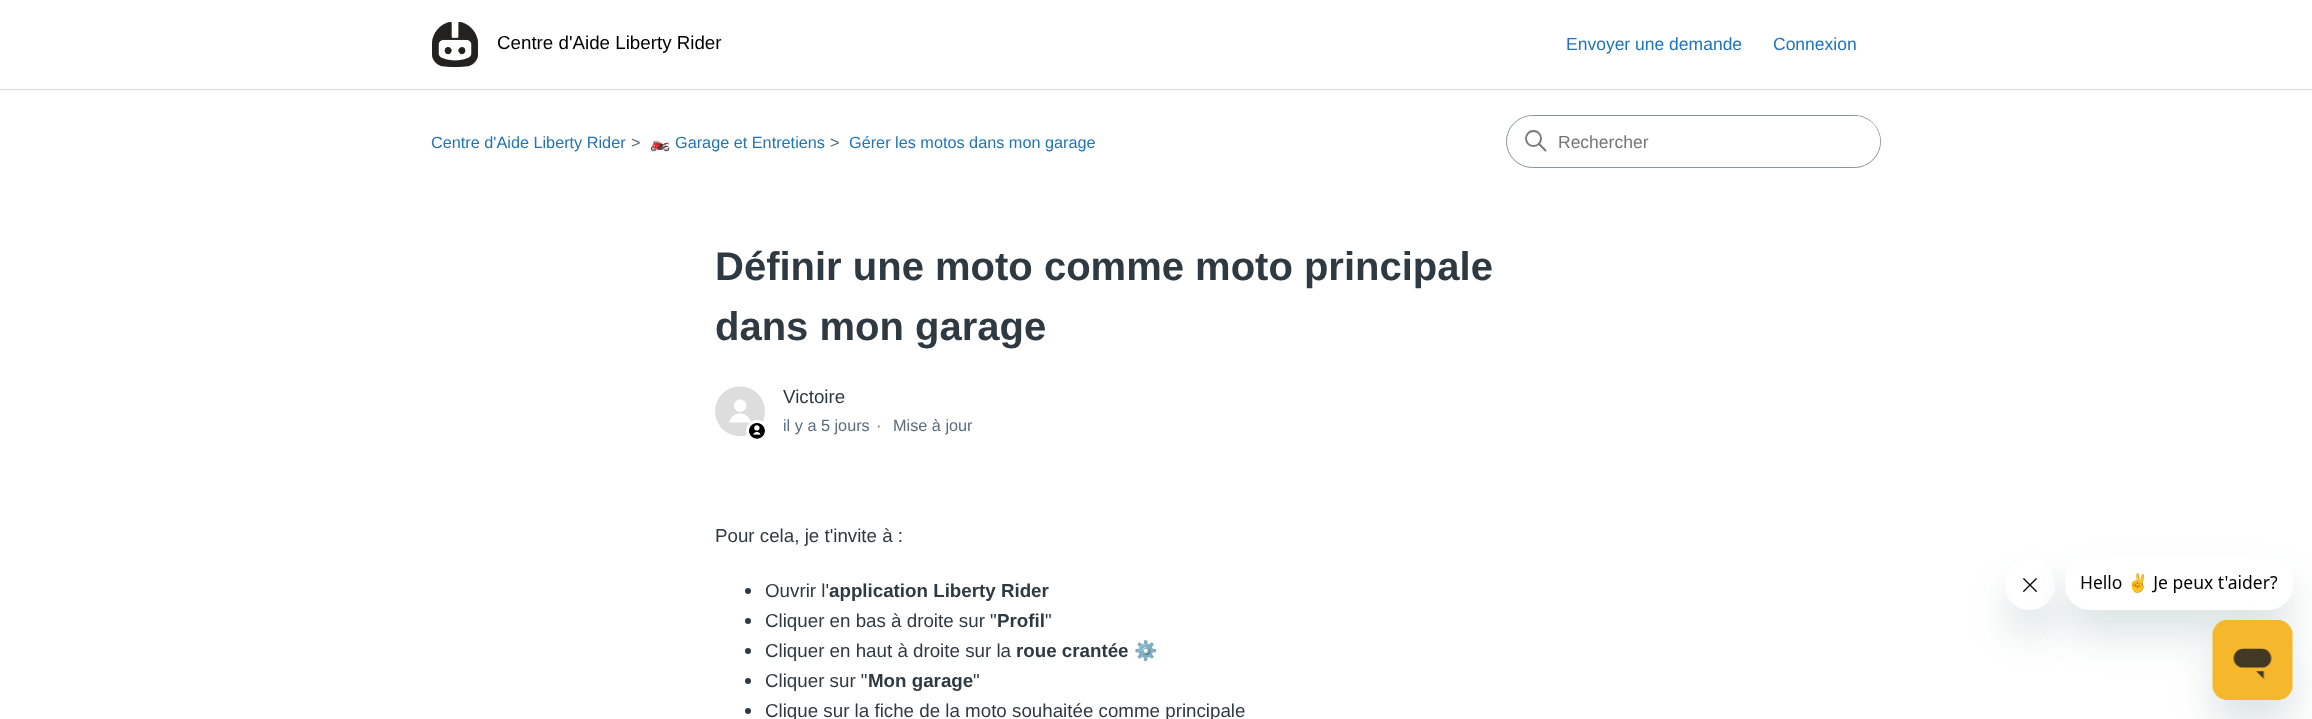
(async () => {
const canvas = document.querySelector("canvas")
canvas.width = 2312
canvas.height = 719
const c = canvas.getContext("2d")
c.miterLimit = 4
c.fontKerning = "normal"
function T(s,x,y){c.fillText(s,x,y)}
function R(x,y,w,h){c.fillRect(x,y,w,h)}
function Q(x,y,w,h,r){c.beginPath();c.roundRect(x,y,w,h,r);c.fill()}
async function I(src,x,y,w,h){const img=new Image();img.src=src;await img.decode();c.drawImage(img,x,y,w,h)}
let path
c.fillStyle="#fff"
R(0,0,2312,719)
await I("1.png",432,21,46,47)
c.font="18.75px Liberation Sans"
c.fillStyle="#000"
T("Centre d'Aide Liberty Rider",497,49)
c.font="17.5px Liberation Sans"
c.fillStyle="#1f73b7"
T("Envoyer une demande",1566,50)
T("Connexion",1773,50)
c.fillStyle="#ddd"
R(0,89,2312,1)
c.font="16.25px Liberation Sans"
c.fillStyle="#1f73b7"
T("Centre d'Aide Liberty Rider",431,148)
c.fillStyle="#5a6d7c"
T(">",631,148)
c.font="16.25px Noto Color Emoji"
c.fillStyle="#1f73b7"
T("🏍️",650,148)
c.font="16.25px Liberation Sans"
T("Garage et Entretiens",675,148)
c.fillStyle="#5a6d7c"
T(">",830,148)
c.fillStyle="#1f73b7"
T("Gérer les motos dans mon garage",849,148)
c.beginPath()
c.roundRect(1506.5,115.5,374,52,26)
c.strokeStyle="#87929d"
c.stroke()
c.fillStyle="#fff"
Q(1508,116,372,50,25)
c.beginPath()
c.arc(1533.5,138.5,7.5,0,7)
c.strokeStyle="#777"
c.lineWidth=1.9
c.stroke()
path = new Path2D("M1545.5 150.5l-6.5-6.5")
c.lineCap="round"
c.stroke(path)
c.font="17.5px Liberation Sans"
c.fillStyle="#757575"
T("Rechercher",1558,148)
c.font="bold 40px Liberation Sans"
c.fillStyle="#2f3941"
T("Définir une moto comme moto principale",715,280)
T("dans mon garage",715,340)
await I("2.png",715,386,50,50)
c.fillStyle="#fff"
c.beginPath()
c.roundRect(747.5,421.5,19,18,9)
c.fill()
c.strokeStyle="#fff"
c.lineWidth=3
c.stroke()
await I("3.png",749,423,16,16)
c.font="18.75px Liberation Sans"
c.fillStyle="#2f3941"
T("Victoire",783,403)
c.font="16.25px Liberation Sans"
c.fillStyle="#5a6d7c"
T("il y a 5 jours",783,431)
T("·",876,431)
T("Mise à jour",893,431)
c.font="18.75px Liberation Sans"
c.fillStyle="#2f3941"
T("Pour cela, je t'invite à :",715,542)
c.beginPath()
c.arc(748,591,3,0,7)
c.fill()
T("Ouvrir l'",765,597)
c.font="bold 18.75px Liberation Sans"
T("application Liberty Rider",829,597)
c.font="18.75px Liberation Sans"
T("Cliquer en bas à droite sur \"",765,627)
c.font="bold 18.75px Liberation Sans"
T("Profil",997,627)
c.font="18.75px Liberation Sans"
T("\"",1045,627)
c.beginPath()
c.arc(748,621,3,0,7)
c.fill()
c.beginPath()
c.arc(748,651,3,0,7)
c.fill()
T("Cliquer en haut à droite sur la",765,657)
c.font="bold 18.75px Liberation Sans"
T("roue crantée",1016,657)
c.font="bold 18.75px Noto Color Emoji"
T("⚙️",1134,657)
c.font="18.75px Liberation Sans"
T("Cliquer sur \"",765,687)
c.font="bold 18.75px Liberation Sans"
T("Mon garage",868,687)
c.font="18.75px Liberation Sans"
T("\"",973,687)
c.beginPath()
c.arc(748,681,3,0,7)
c.fill()
c.beginPath()
c.arc(748,711,3,0,7)
c.fill()
T("Clique sur la fiche de la moto souhaitée comme principale",765,717)
c.save()
path = new Path2D("M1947 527h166v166h-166zm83 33c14 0 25 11 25 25c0 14-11 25-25 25c-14 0-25-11-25-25c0-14 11-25 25-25z")
c.clip(path,"evenodd")
c.fillStyle="#17494d26"
c.filter="blur(19px)"
c.beginPath()
c.roundRect(2005,585,50,50,25)
c.fill()
c.filter="none"
c.restore()
await I("5.png",2023,578,14,14)
c.save()
path = new Path2D("M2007 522h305v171h-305zm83 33h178c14 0 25 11 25 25v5c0 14-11 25-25 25h-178c-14 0-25-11-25-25v-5c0-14 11-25 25-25z")
c.clip(path,"evenodd")
c.fillStyle="#17494d26"
c.filter="blur(19px)"
c.beginPath()
c.roundRect(2065,580,228,55,25)
c.fill()
c.filter="none"
c.restore()
await I("4.png",2066,573,212,31)
c.fillStyle="#17494d26"
c.filter="blur(19px)"
c.beginPath()
c.roundRect(2213,645,80,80,15)
c.fill()
c.filter="none"
await I("6.png",2212,620,81,80)
})()
